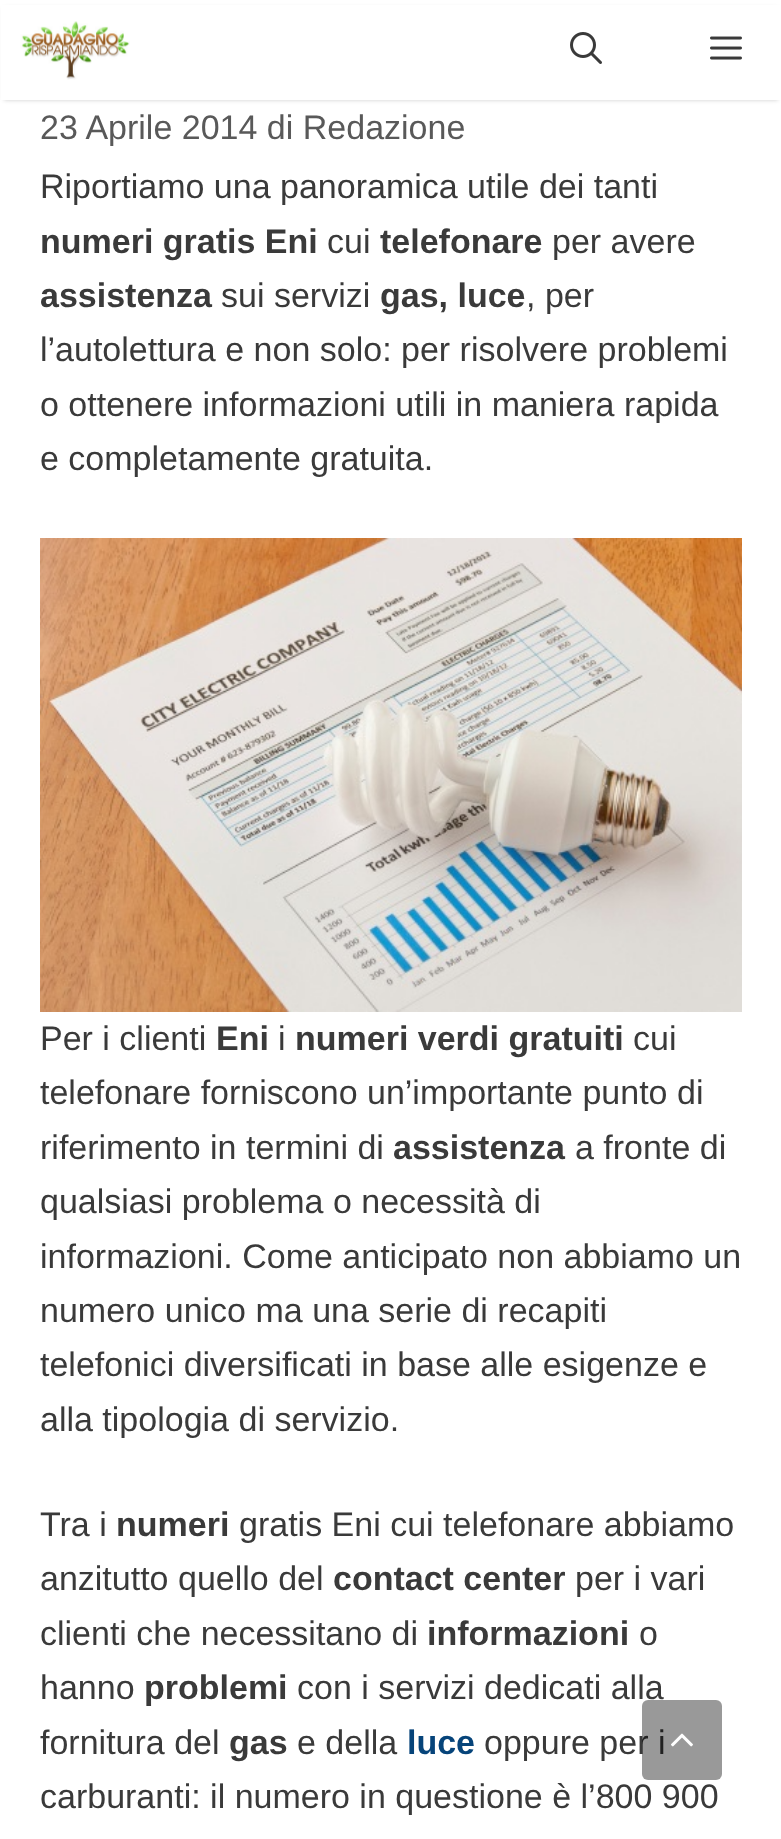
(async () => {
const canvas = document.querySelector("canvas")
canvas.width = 781
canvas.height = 1839
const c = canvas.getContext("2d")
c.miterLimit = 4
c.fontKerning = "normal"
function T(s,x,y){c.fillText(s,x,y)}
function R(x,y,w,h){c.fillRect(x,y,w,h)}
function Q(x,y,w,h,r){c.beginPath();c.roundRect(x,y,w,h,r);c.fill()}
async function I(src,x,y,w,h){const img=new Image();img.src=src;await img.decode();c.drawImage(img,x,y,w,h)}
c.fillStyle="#fff"
R(0,0,781,1839)
c.fillStyle="#00000033"
c.filter="blur(2px)"
c.beginPath()
c.rect(4,8,774,92)
c.fill()
c.filter="none"
c.fillStyle="#fff"
R(1,5,780,95)
await I("1.png",20,21,110,59)
await I("2.png",570,32,32,32)
await I("3.png",710,36,32,24)
c.font="34px Liberation Sans"
c.fillStyle="#595959"
T("23 Aprile 2014 di Redazione",40,139)
c.fillStyle="#3a3a3a"
T("Riportiamo una panoramica utile dei tanti",40,198)
c.font="bold 34px Liberation Sans"
T("numeri gratis Eni",40,253)
c.font="34px Liberation Sans"
T("cui",327,253)
c.font="bold 34px Liberation Sans"
T("telefonare",380,253)
c.font="34px Liberation Sans"
T("per avere",552,253)
c.font="bold 34px Liberation Sans"
T("assistenza",40,307)
c.font="34px Liberation Sans"
T("sui servizi",221,307)
c.font="bold 34px Liberation Sans"
T("gas, luce",380,307)
c.font="34px Liberation Sans"
T(", per",526,307)
T("l’autolettura e non solo: per risolvere problemi",40,361)
T("o ottenere informazioni utili in maniera rapida",40,416)
T("e completamente gratuita.",40,470)
await I("4.png",40,538,702,474)
T("Per i clienti",40,1050)
c.font="bold 34px Liberation Sans"
T("Eni",216,1050)
c.font="34px Liberation Sans"
T("i",278,1050)
c.font="bold 34px Liberation Sans"
T("numeri verdi gratuiti",295,1050)
c.font="34px Liberation Sans"
T("cui",633,1050)
T("telefonare forniscono un’importante punto di",40,1104)
T("riferimento in termini di",40,1159)
c.font="bold 34px Liberation Sans"
T("assistenza",393,1159)
c.font="34px Liberation Sans"
T("a fronte di",575,1159)
T("qualsiasi problema o necessità di",40,1213)
T("informazioni. Come anticipato non abbiamo un",40,1268)
T("numero unico ma una serie di recapiti",40,1322)
T("telefonici diversificati in base alle esigenze e",40,1376)
T("alla tipologia di servizio.",40,1431)
T("Tra i",40,1536)
c.font="bold 34px Liberation Sans"
T("numeri",116,1536)
c.font="34px Liberation Sans"
T("gratis Eni cui telefonare abbiamo",239,1536)
T("anzitutto quello del",40,1590)
c.font="bold 34px Liberation Sans"
T("contact center",333,1590)
c.font="34px Liberation Sans"
T("per i vari",575,1590)
T("clienti che necessitano di",40,1645)
c.font="bold 34px Liberation Sans"
T("informazioni",427,1645)
c.font="34px Liberation Sans"
T("o",639,1645)
T("hanno",40,1699)
c.font="bold 34px Liberation Sans"
T("problemi",144,1699)
c.font="34px Liberation Sans"
T("con i servizi dedicati alla",297,1699)
T("fornitura del",40,1754)
c.font="bold 34px Liberation Sans"
T("gas",229,1754)
c.font="34px Liberation Sans"
T("e della",297,1754)
c.font="bold 34px Liberation Sans"
c.fillStyle="#06447a"
T("luce",407,1754)
c.font="34px Liberation Sans"
c.fillStyle="#3a3a3a"
T("oppure per i",484,1754)
T("carburanti: il numero in questione è l’800 900",40,1808)
c.fillStyle="#00000066"
Q(642,1700,80,80,6)
await I("5.png",671,1733,22,14)
})()
